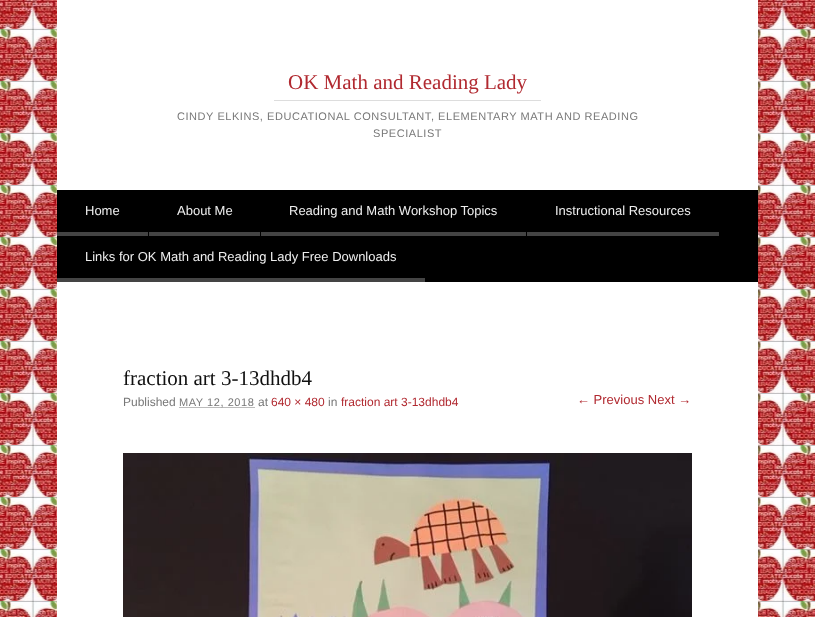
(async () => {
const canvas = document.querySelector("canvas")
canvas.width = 815
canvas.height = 617
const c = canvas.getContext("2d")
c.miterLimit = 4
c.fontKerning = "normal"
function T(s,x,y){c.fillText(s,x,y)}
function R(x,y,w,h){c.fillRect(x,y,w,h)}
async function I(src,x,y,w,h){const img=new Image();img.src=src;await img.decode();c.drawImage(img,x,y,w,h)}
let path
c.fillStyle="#fff"
R(0,0,815,617)
await I("1.png",0,0,815,617)
R(57,0,701,617)
c.fillStyle="#ddd"
R(274,100,267,1)
c.font="21px Liberation Serif"
c.fillStyle="#b12930"
T("OK Math and Reading Lady",288,89)
c.letterSpacing="0.55px"
c.font="11px Liberation Sans"
c.fillStyle="#777"
T("CINDY ELKINS, EDUCATIONAL CONSULTANT, ELEMENTARY MATH AND READING",177,120)
T("SPECIALIST",373,137)
c.fillStyle="#000"
R(57,190,701,92)
c.fillStyle="#444"
R(57,232,91,4)
c.letterSpacing="0px"
c.font="13px Liberation Sans"
c.fillStyle="#eee"
T("Home",85,215)
c.fillStyle="#444"
R(149,232,111,4)
c.fillStyle="#eee"
T("About Me",177,215)
c.fillStyle="#444"
R(261,232,265,4)
c.fillStyle="#eee"
T("Reading and Math Workshop Topics",289,215)
c.fillStyle="#444"
R(527,232,192,4)
c.fillStyle="#eee"
T("Instructional Resources",555,215)
c.fillStyle="#444"
R(57,278,368,4)
c.fillStyle="#eee"
T("Links for OK Math and Reading Lady Free Downloads",85,261)
c.font="21px Liberation Serif"
c.fillStyle="#111"
T("fraction art 3-13dhdb4",123,385)
c.font="12px Liberation Sans"
c.fillStyle="#777"
T("Published",123,406)
path = new Path2D("M179.5 407.5h75")
c.strokeStyle="#777"
c.setLineDash([1,1])
c.stroke(path)
c.letterSpacing="0.55px"
c.font="11px Liberation Sans"
T("MAY 12, 2018",179,406)
c.letterSpacing="0px"
c.font="12px Liberation Sans"
T("at",258,406)
c.fillStyle="#b12930"
T("640 × 480",271,406)
c.fillStyle="#777"
T("in",328,406)
c.fillStyle="#b12930"
T("fraction art 3-13dhdb4",341,406)
c.font="13px Liberation Sans"
T("← Previous Next →",577,404)
await I("2.png",123,453,569,164)
})()
